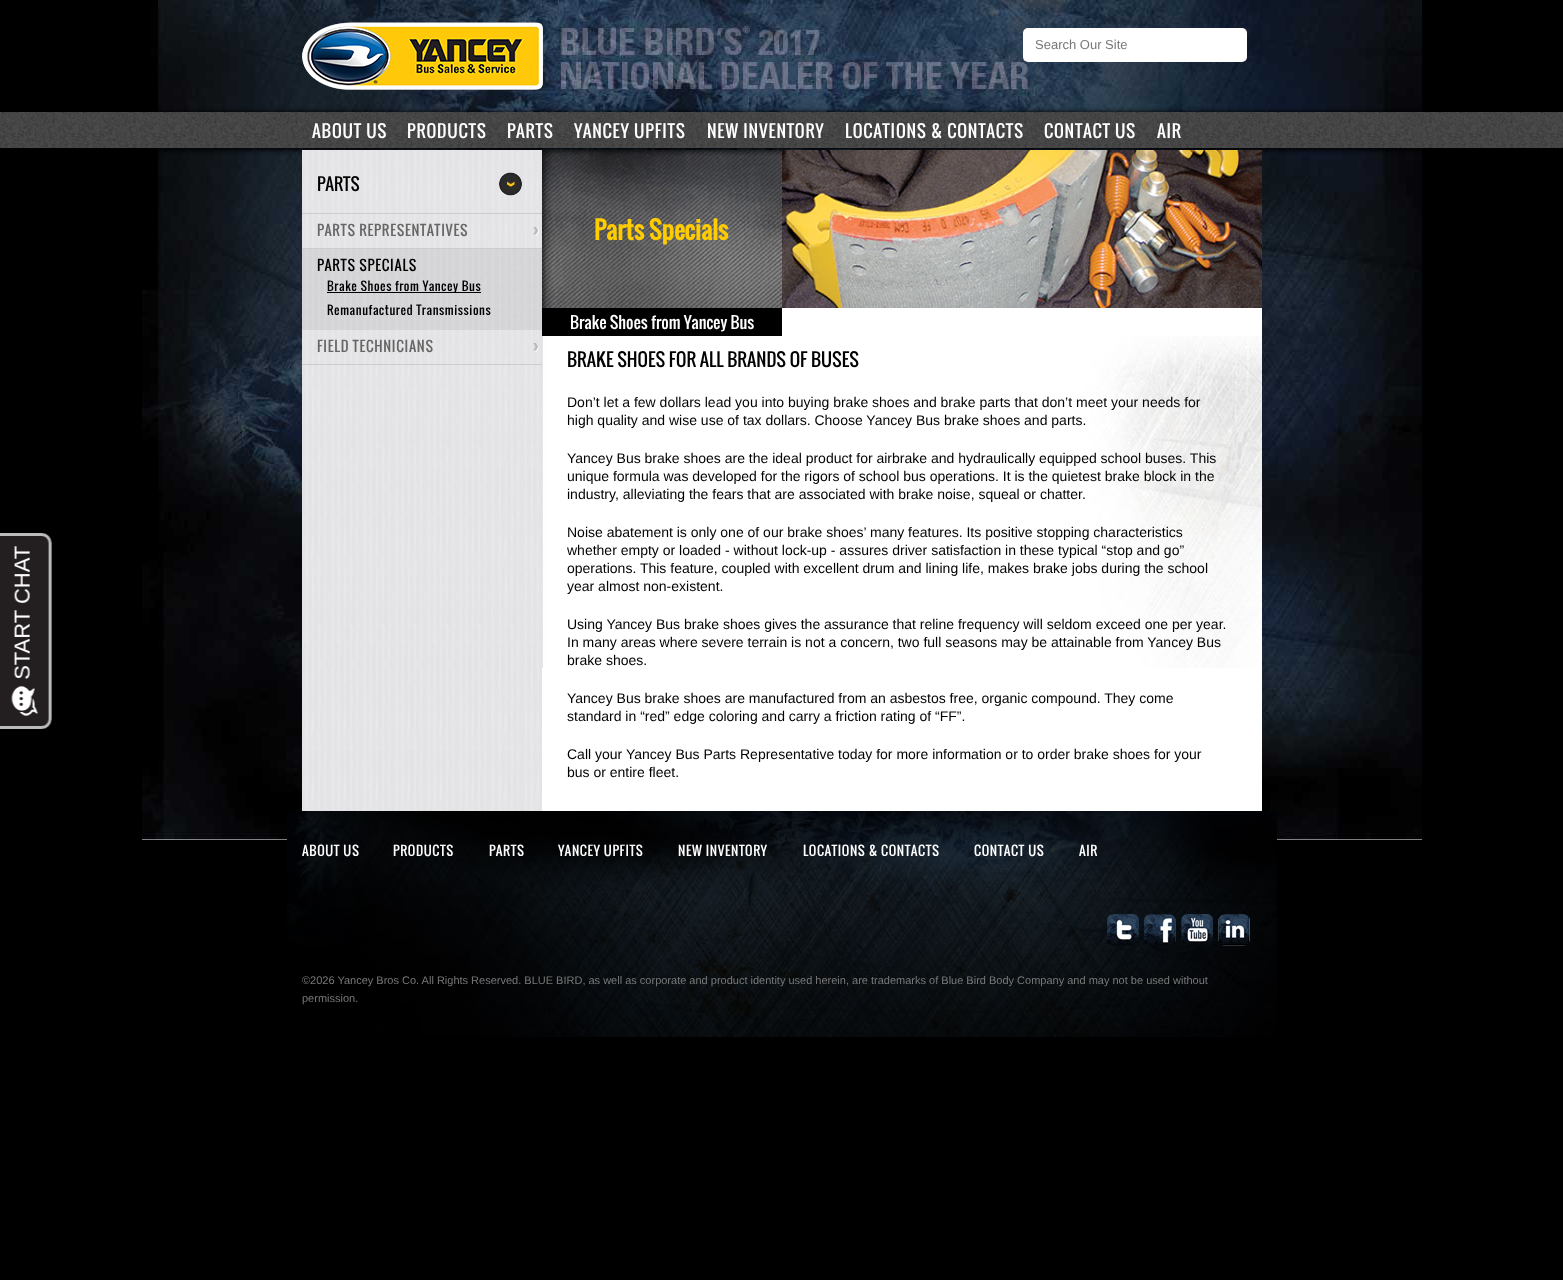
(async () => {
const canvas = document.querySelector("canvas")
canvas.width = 1563
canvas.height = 1280
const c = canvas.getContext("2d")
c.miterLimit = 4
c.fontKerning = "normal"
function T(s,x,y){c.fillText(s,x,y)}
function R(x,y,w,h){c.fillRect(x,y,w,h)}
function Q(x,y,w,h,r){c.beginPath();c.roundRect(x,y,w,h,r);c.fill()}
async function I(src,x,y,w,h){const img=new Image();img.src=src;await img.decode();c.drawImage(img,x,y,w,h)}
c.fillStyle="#000"
R(0,0,1563,1280)
await I("1.png",142,0,1280,840)
await I("2.png",302,22,241,68)
c.fillStyle="#fff"
Q(1023,28,224,34,5)
c.font="13px Liberation Sans"
c.fillStyle="#787878"
T("Search Our Site",1035,49)
c.fillStyle="#000"
c.filter="blur(2.5px)"
c.beginPath()
c.rect(0,112,1563,38)
c.fill()
c.filter="none"
await I("3.png",0,112,1563,36)
c.letterSpacing="0.8px"
c.font="17px Oswald"
c.fillStyle="#fff"
T("ABOUT US",312,138)
T("PRODUCTS",407,138)
T("PARTS",507,138)
T("YANCEY UPFITS",574,138)
T("NEW INVENTORY",707,138)
T("LOCATIONS & CONTACTS",845,138)
T("CONTACT US",1044,138)
T("AIR",1157,138)
await I("4.png",0,533,52,196)
await I("5.png",302,150,240,661)
c.fillStyle="#ccc"
R(302,213,240,1)
await I("6.png",499,172,23,24)
c.letterSpacing="0px"
c.fillStyle="#000"
T("PARTS",317,191)
await I("7.png",533,227,6,9)
c.fillStyle="#ccc"
R(302,248,240,1)
c.letterSpacing="0.7px"
c.font="14px Oswald"
c.fillStyle="#666"
T("PARTS REPRESENTATIVES",317,236)
await I("8.png",302,249,240,81)
c.fillStyle="#000"
T("PARTS SPECIALS",317,271)
R(327,292,154,1)
c.letterSpacing="0.6px"
c.font="12px Oswald"
T("Brake Shoes from Yancey Bus",327,291)
T("Remanufactured Transmissions",327,315)
await I("9.png",533,343,6,9)
c.fillStyle="#ccc"
R(302,364,240,1)
c.letterSpacing="0.7px"
c.font="14px Oswald"
c.fillStyle="#666"
T("FIELD TECHNICIANS",317,352)
c.fillStyle="#fff"
R(542,308,720,503)
await I("10.png",542,150,240,158)
c.letterSpacing="0px"
c.font="bold 24px Oswald"
c.fillStyle="#fc0"
T("Parts Specials",594,240)
await I("11.png",782,150,480,158)
c.fillStyle="#000"
R(542,308,240,28)
c.font="16px Oswald"
c.fillStyle="#fff"
T("Brake Shoes from Yancey Bus",570,329)
await I("12.png",542,336,720,332)
c.font="18px Oswald"
c.fillStyle="#000"
T("BRAKE SHOES FOR ALL BRANDS OF BUSES",567,367)
c.font="14px Liberation Sans"
T("Don’t let a few dollars lead you into buying brake shoes and brake parts that don’t meet your needs for",567,407)
T("high quality and wise use of tax dollars. Choose Yancey Bus brake shoes and parts.",567,425)
T("Yancey Bus brake shoes are the ideal product for airbrake and hydraulically equipped school buses. This",567,463)
T("unique formula was developed for the rigors of school bus operations. It is the quietest brake block in the",567,481)
T("industry, alleviating the fears that are associated with brake noise, squeal or chatter.",567,499)
T("Noise abatement is only one of our brake shoes’ many features. Its positive stopping characteristics",567,537)
T("whether empty or loaded - without lock-up - assures driver satisfaction in these typical “stop and go”",567,555)
T("operations. This feature, coupled with excellent drum and lining life, makes brake jobs during the school",567,573)
T("year almost non-existent.",567,591)
T("Using Yancey Bus brake shoes gives the assurance that reline frequency will seldom exceed one per year.",567,629)
T("In many areas where severe terrain is not a concern, two full seasons may be attainable from Yancey Bus",567,647)
T("brake shoes.",567,665)
T("Yancey Bus brake shoes are manufactured from an asbestos free, organic compound. They come",567,703)
T("standard in “red” edge coloring and carry a friction rating of “FF”.",567,721)
T("Call your Yancey Bus Parts Representative today for more information or to order brake shoes for your",567,759)
T("bus or entire fleet.",567,777)
await I("13.png",287,811,990,226)
c.letterSpacing="0.6px"
c.font="13px Oswald"
c.fillStyle="#fff"
T("ABOUT US",302,856)
T("PRODUCTS",393,856)
T("PARTS",489,856)
T("YANCEY UPFITS",558,856)
T("NEW INVENTORY",678,856)
T("LOCATIONS & CONTACTS",803,856)
T("CONTACT US",974,856)
T("AIR",1079,856)
await I("14.png",1107,914,32,32)
await I("15.png",1144,914,32,32)
await I("16.png",1181,914,32,31)
await I("17.png",1218,914,32,32)
c.letterSpacing="0px"
c.font="11px Liberation Sans"
c.fillStyle="#787878"
T("©2026 Yancey Bros Co. All Rights Reserved. BLUE BIRD, as well as corporate and product identity used herein, are trademarks of Blue Bird Body Company and may not be used without",302,984)
T("permission.",302,1002)
})()
